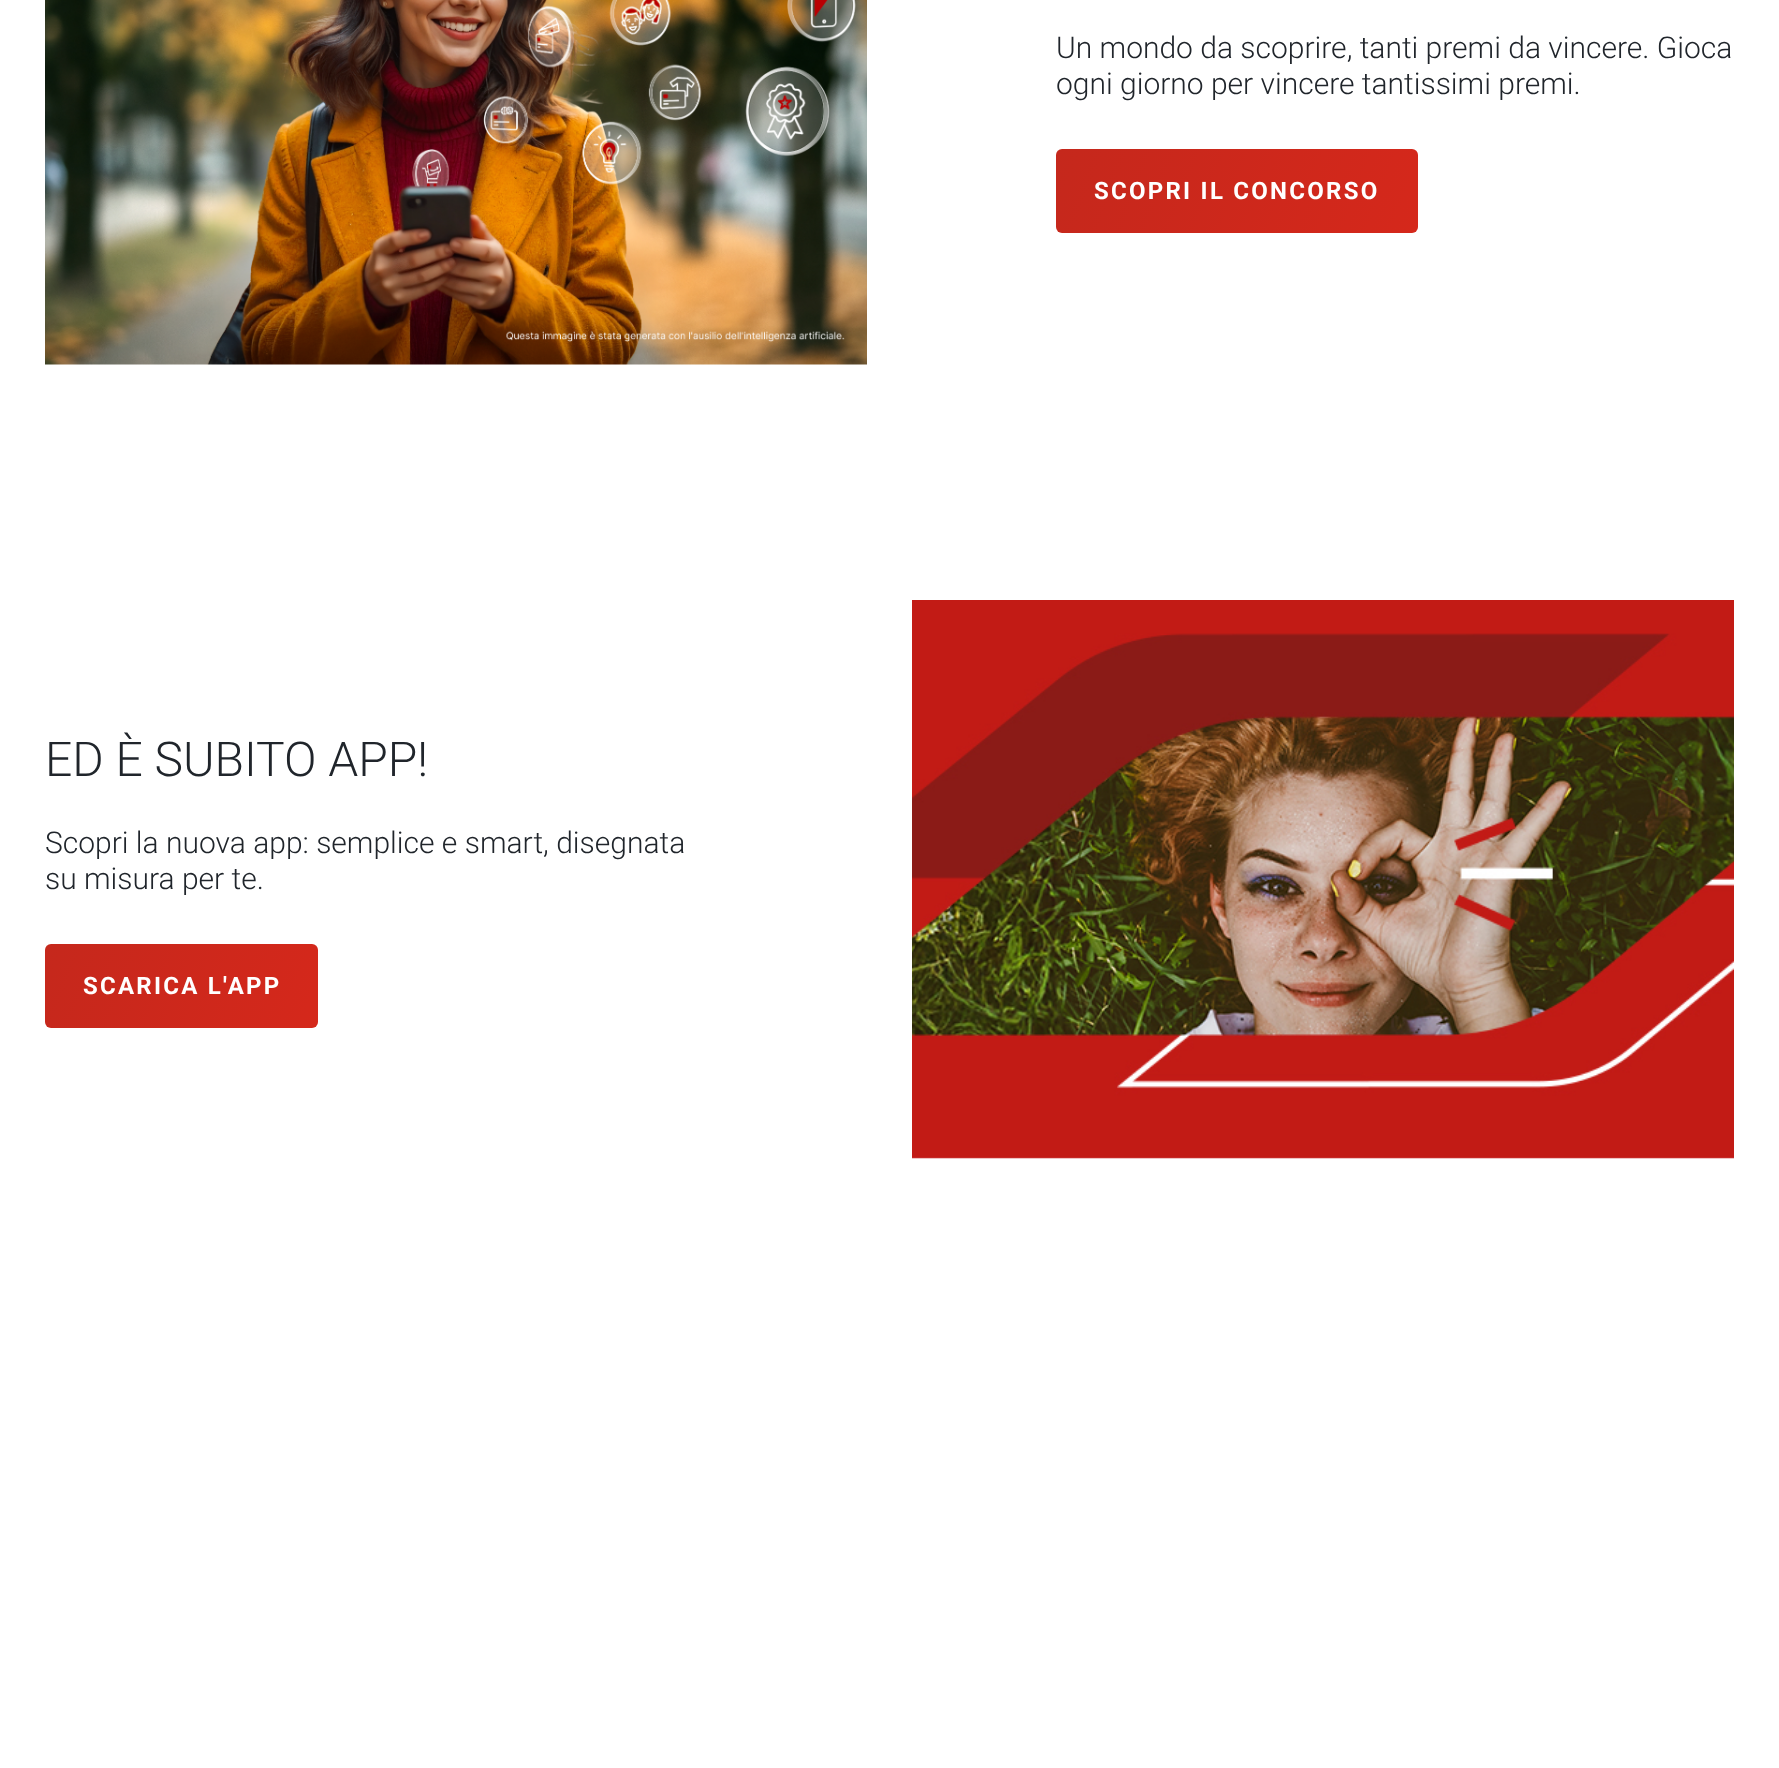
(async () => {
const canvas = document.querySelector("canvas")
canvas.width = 1779
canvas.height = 1768
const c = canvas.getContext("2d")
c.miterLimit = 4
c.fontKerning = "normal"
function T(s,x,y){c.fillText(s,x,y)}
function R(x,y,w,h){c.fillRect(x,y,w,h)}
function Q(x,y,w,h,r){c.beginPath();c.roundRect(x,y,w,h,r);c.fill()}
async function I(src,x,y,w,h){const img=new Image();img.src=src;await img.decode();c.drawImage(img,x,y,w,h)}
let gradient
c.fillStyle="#fff"
R(0,0,1779,1768)
await I("1.png",45,0,822,365)
c.font="300 30px Roboto"
c.fillStyle="#20252b"
T("Un mondo da scoprire, tanti premi da vincere. Gioca",1056,58)
T("ogni giorno per vincere tantissimi premi.",1056,94)
gradient = c.createLinearGradient(1408,256,1065,125)
gradient.addColorStop(0,"#d5281b")
gradient.addColorStop(1,"#c5281c")
c.fillStyle = gradient
Q(1056,149,362,84,6)
c.letterSpacing="2.25px"
c.font="bold 24px Roboto"
c.fillStyle="#fff"
T("SCOPRI IL CONCORSO",1094,199)
c.letterSpacing="0px"
c.font="300 48px Roboto"
c.fillStyle="#20252b"
T("ED È SUBITO APP!",45,776)
c.font="300 30px Roboto"
T("Scopri la nuova app: semplice e smart, disegnata",45,853)
T("su misura per te.",45,889)
gradient = c.createLinearGradient(315,1037,48,934)
gradient.addColorStop(0,"#d5281b")
gradient.addColorStop(1,"#c5281c")
c.fillStyle = gradient
Q(45,944,273,84,6)
c.letterSpacing="2.25px"
c.font="bold 24px Roboto"
c.fillStyle="#fff"
T("SCARICA L'APP",83,994)
await I("2.png",912,600,822,559)
})()
